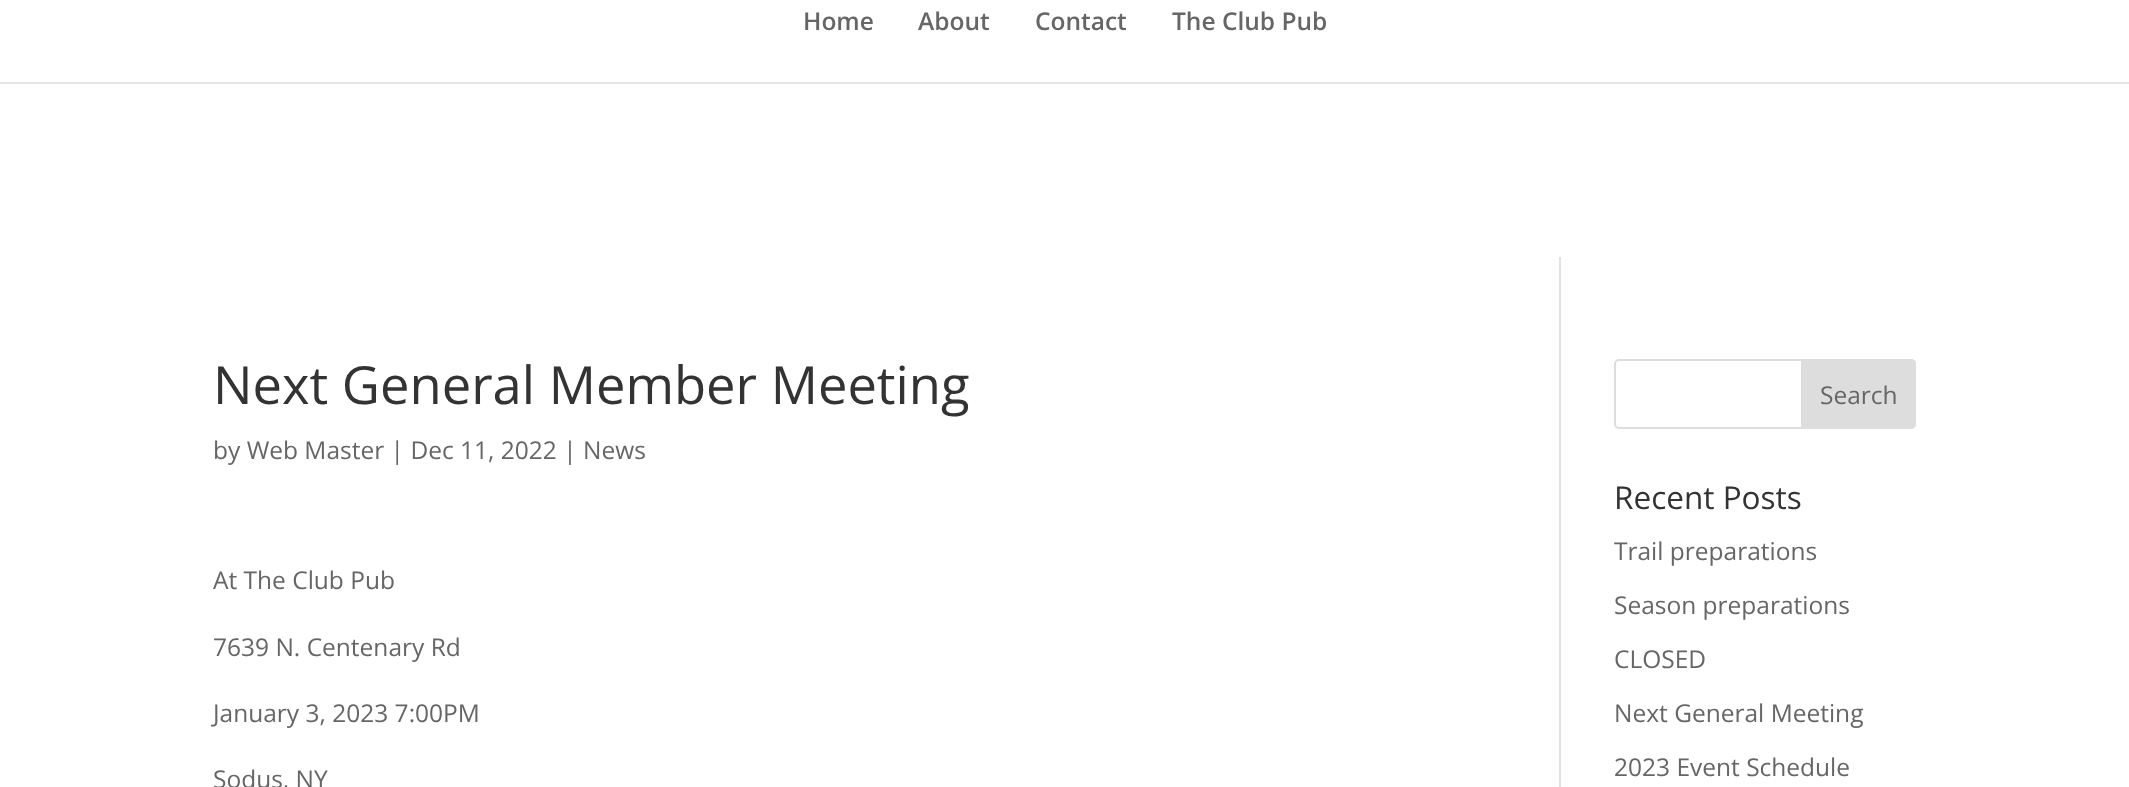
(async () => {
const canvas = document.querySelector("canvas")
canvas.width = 2129
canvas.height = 787
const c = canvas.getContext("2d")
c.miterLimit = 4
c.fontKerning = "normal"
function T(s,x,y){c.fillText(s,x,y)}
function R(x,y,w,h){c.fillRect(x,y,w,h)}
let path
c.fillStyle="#fff"
R(0,0,2129,787)
c.fillStyle="#e6e6e6"
path = new Path2D("M0 82v2h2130v-82v80z")
c.fill(path)
c.font="600 24.5px Open Sans"
c.fillStyle="#666"
T("Home",803,30)
T("About",918,30)
T("Contact",1035,30)
T("The Club Pub",1172,30)
c.fillStyle="#e2e2e2"
R(1559,257,2,530)
c.font="52.5px Open Sans"
c.fillStyle="#333"
T("Next General Member Meeting",213,404)
c.font="24.5px Open Sans"
c.fillStyle="#666"
T("by Web Master | Dec 11, 2022 | News",213,459)
T("At The Club Pub",213,589)
T("7639 N. Centenary Rd",213,656)
T("January 3, 2023 7:00PM",213,722)
T("Sodus, NY",213,788)
c.beginPath()
c.roundRect(1615,360,300,68,4)
c.strokeStyle="#ddd"
c.lineWidth=2
c.stroke()
c.fillStyle="#ddd"
c.beginPath()
c.roundRect(1802,360,113,68,[0,4,4,0])
c.fill()
c.stroke()
c.fillStyle="#666"
T("Search",1820,404)
c.font="31.5px Open Sans"
c.fillStyle="#333"
T("Recent Posts",1614,509)
c.font="24.5px Open Sans"
c.fillStyle="#666"
T("Trail preparations",1614,560)
T("Season preparations",1614,614)
T("CLOSED",1614,668)
T("Next General Meeting",1614,722)
T("2023 Event Schedule",1614,776)
})()
